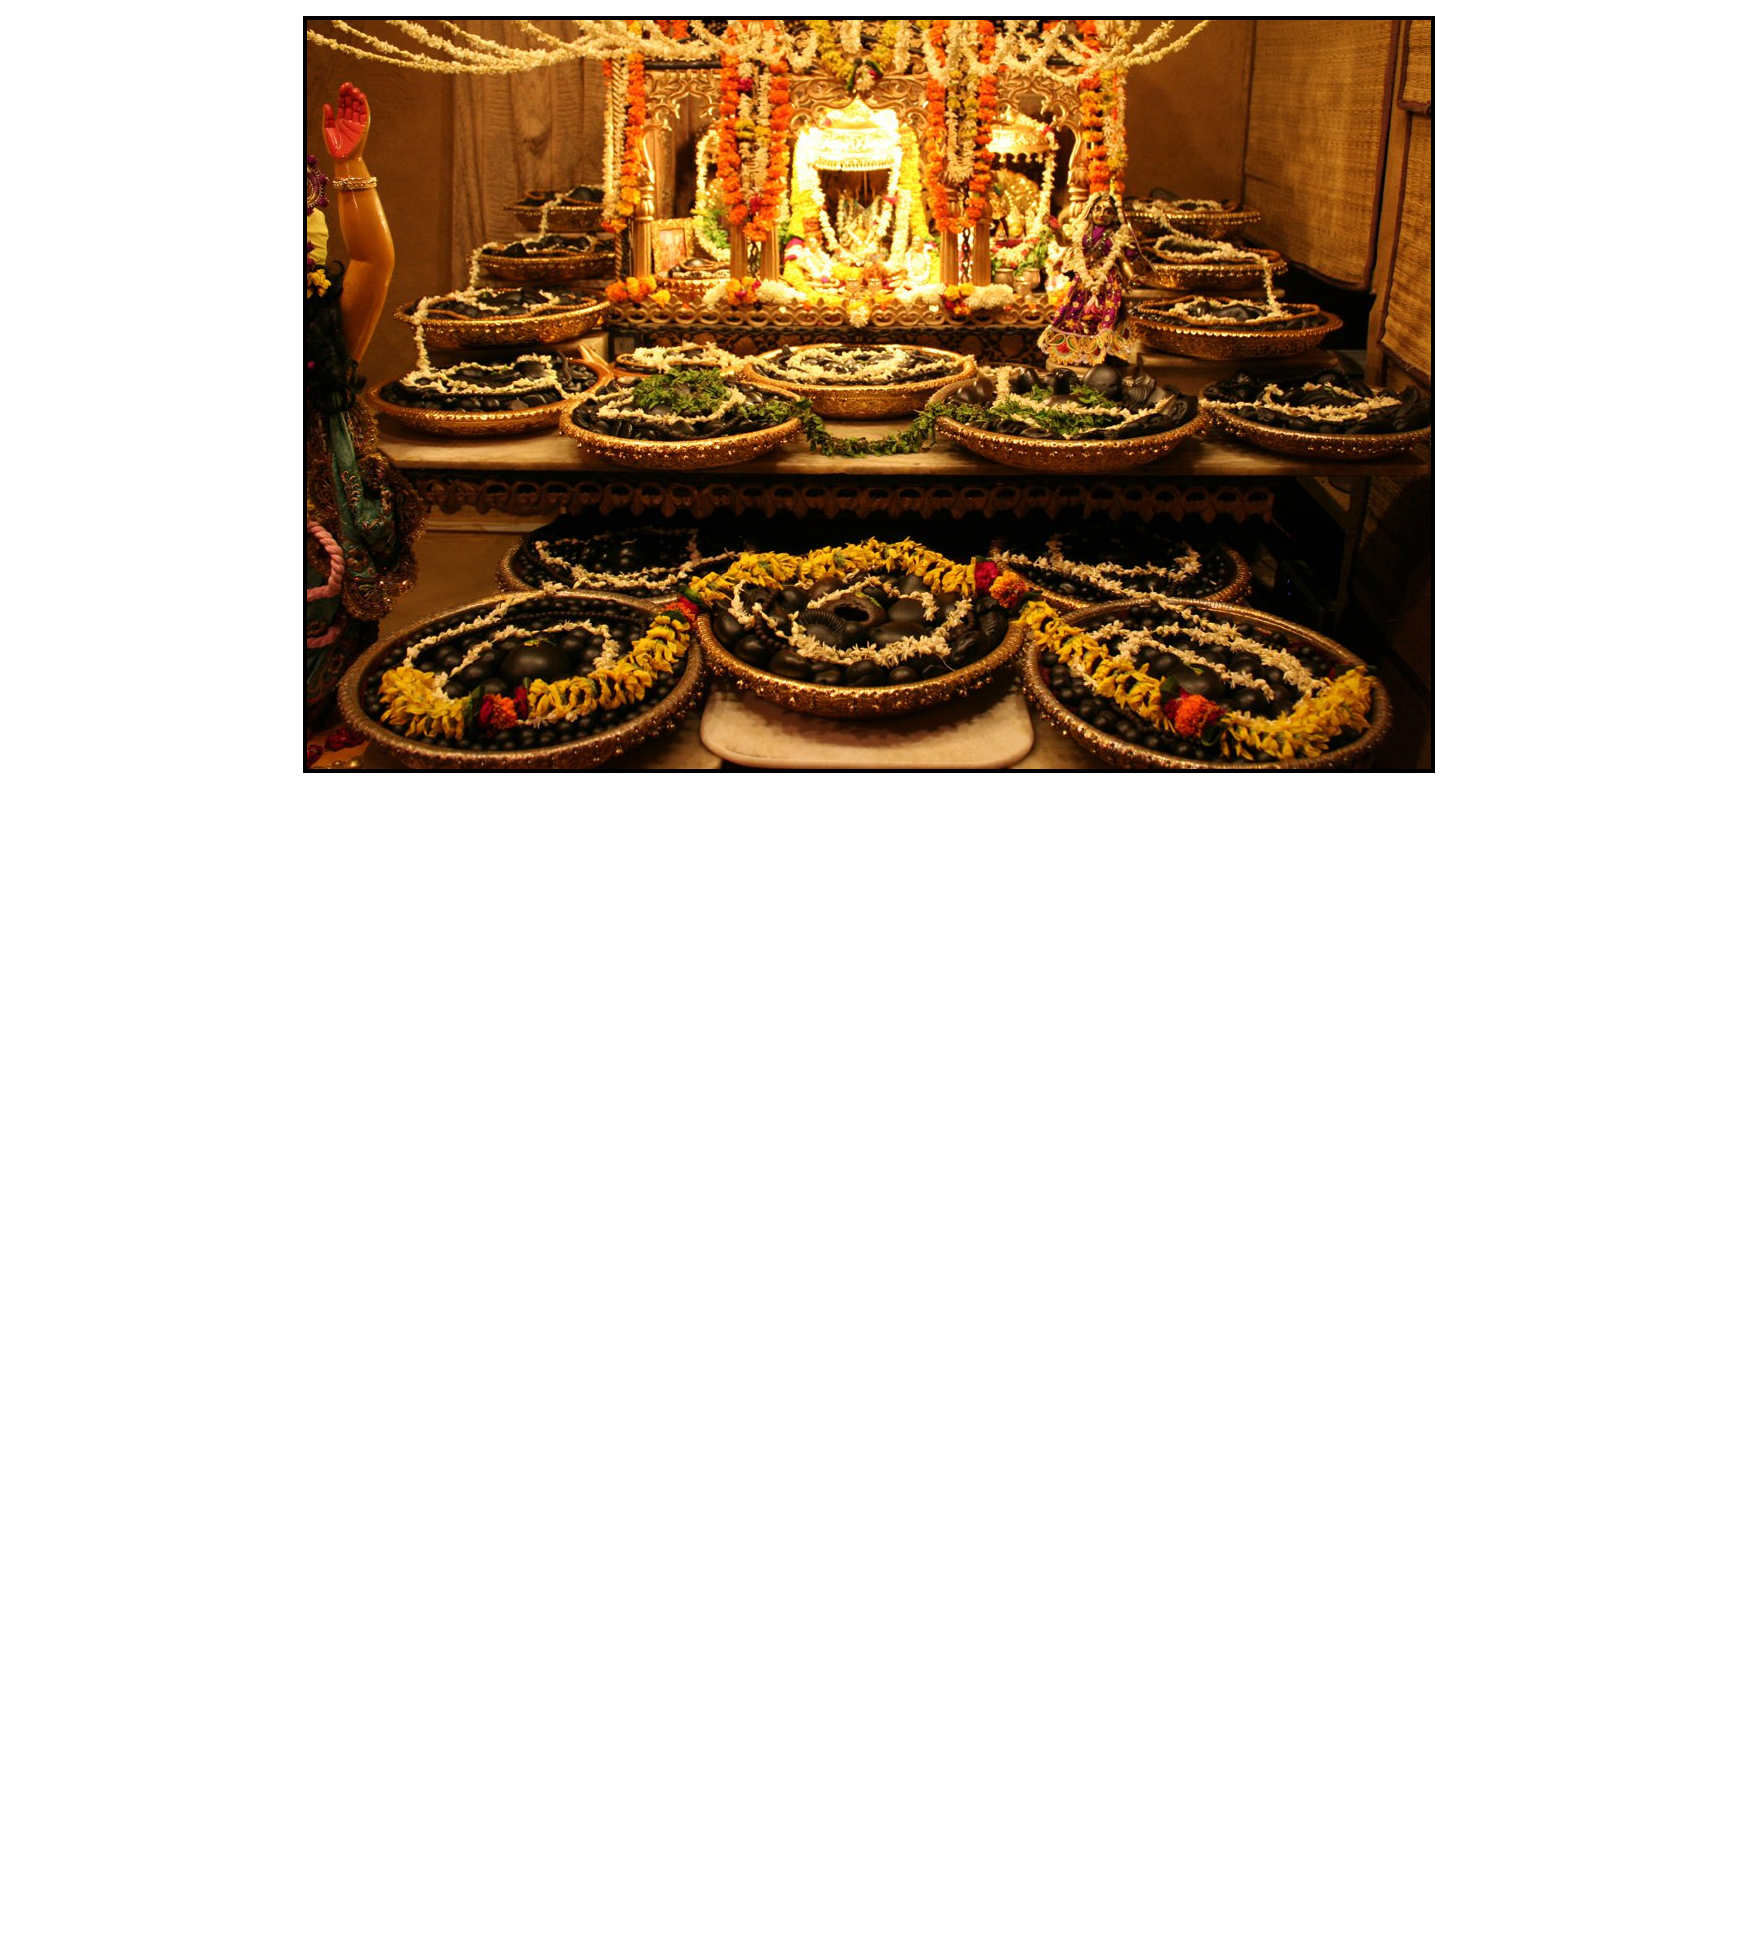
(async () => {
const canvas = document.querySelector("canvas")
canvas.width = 1741
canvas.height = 1952
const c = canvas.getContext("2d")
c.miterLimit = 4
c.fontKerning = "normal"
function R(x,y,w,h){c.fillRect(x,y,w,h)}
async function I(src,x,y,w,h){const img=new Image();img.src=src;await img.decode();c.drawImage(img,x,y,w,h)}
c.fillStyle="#fff"
R(0,0,1741,1952)
c.strokeStyle="#000"
c.lineWidth=4
c.strokeRect(305,18,1128,753)
await I("1.png",307,20,1124,749)
})()
